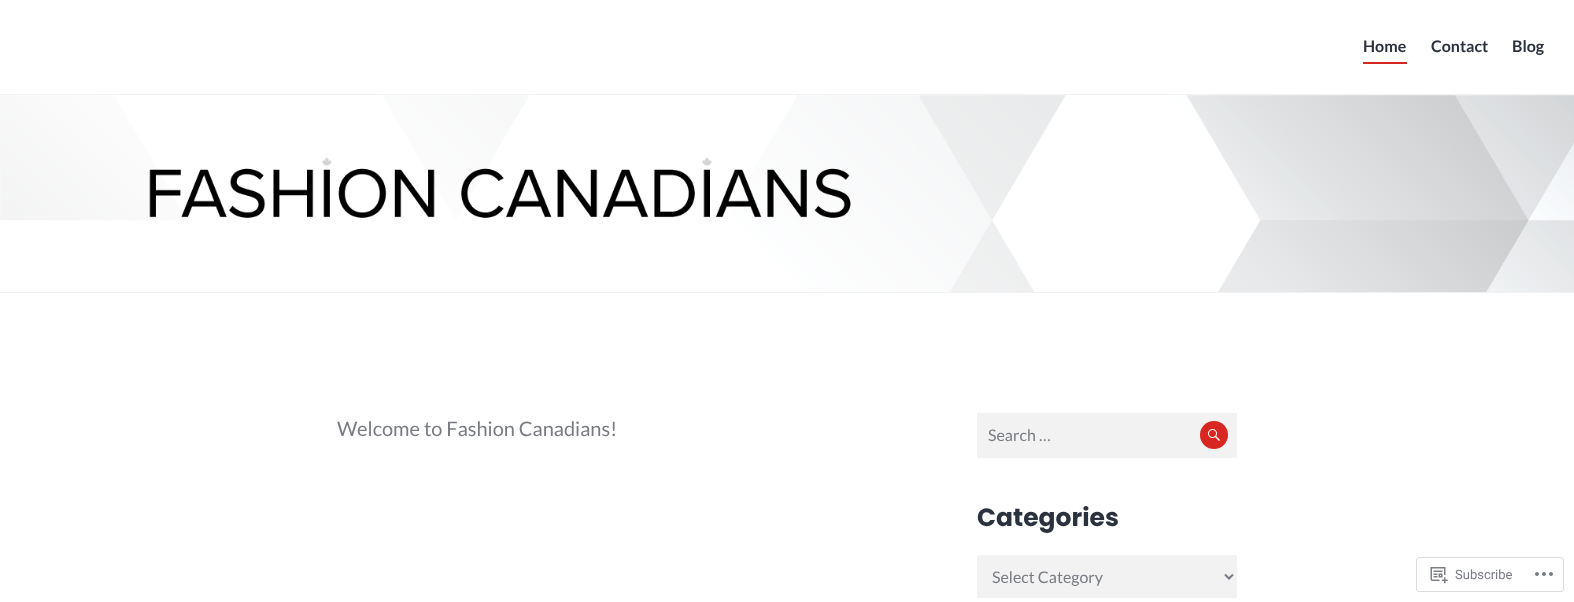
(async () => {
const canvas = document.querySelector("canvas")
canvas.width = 1574
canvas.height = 602
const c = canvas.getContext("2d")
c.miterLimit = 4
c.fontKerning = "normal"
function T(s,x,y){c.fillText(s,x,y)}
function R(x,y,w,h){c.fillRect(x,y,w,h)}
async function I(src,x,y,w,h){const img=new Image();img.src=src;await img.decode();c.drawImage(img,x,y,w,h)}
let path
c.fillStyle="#fff"
R(0,0,1574,602)
c.fillStyle="#f2f2f2"
R(0,94,1574,1)
c.fillStyle="#d82620"
R(1363,62,44,2)
c.font="bold 16px Lato"
c.fillStyle="#2c313f"
T("Home",1363,52)
T("Contact",1431,52)
T("Blog",1512,52)
c.fillStyle="#f2f2f2"
R(0,292,1574,1)
await I("1.png",0,95,1574,197)
c.font="20px Lato"
c.fillStyle="#7a7c84"
T("Welcome to Fashion Canadians!",337,436)
c.fillStyle="#f2f2f2"
R(977,413,260,45)
c.font="16px Lato"
c.fillStyle="#7a7c84"
T("Search …",988,441)
c.fillStyle="#d82620"
c.beginPath()
c.arc(1214,435,14,0,7)
c.fill()
await I("2.png",1208,429,12,12)
c.font="bold 25px Poppins"
c.fillStyle="#2c313f"
T("Categories",977,526)
c.fillStyle="#f2f2f2"
R(977,555,260,43)
path = new Path2D("M1225 574.5l4 4l4-4")
c.strokeStyle="#7a7c84"
c.lineWidth=2
c.stroke(path)
c.font="16px Lato"
c.fillStyle="#7a7c84"
T("Select Category",992,583)
c.beginPath()
c.roundRect(1416.5,557.5,147,34,2.5)
c.strokeStyle="#dddddf"
c.lineWidth=1
c.stroke()
await I("3.png",1430,567,18,17)
c.font="13px Roboto"
T("Subscribe",1455,579)
await I("4.png",1535,572,18,4)
})()
